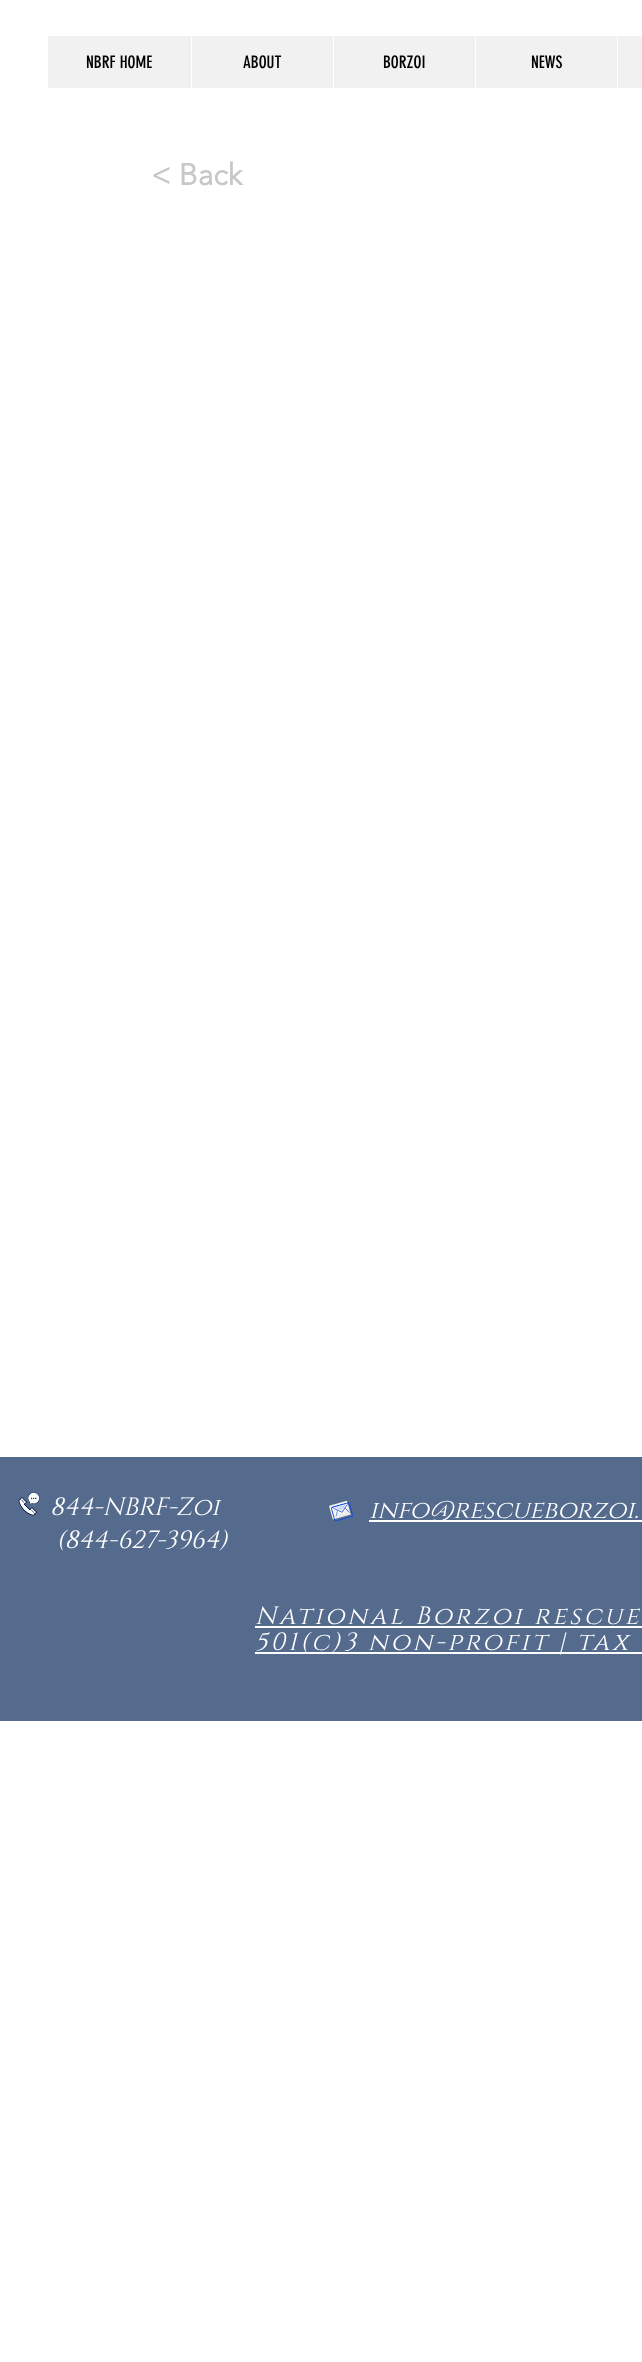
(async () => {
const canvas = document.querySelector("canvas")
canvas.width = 642
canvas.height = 2362
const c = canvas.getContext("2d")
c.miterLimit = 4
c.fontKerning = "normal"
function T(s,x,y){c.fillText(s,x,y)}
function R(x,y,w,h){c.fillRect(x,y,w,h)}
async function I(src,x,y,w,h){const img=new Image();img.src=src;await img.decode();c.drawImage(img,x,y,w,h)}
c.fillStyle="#fff"
R(0,0,642,2362)
c.fillStyle="#f1f1f1"
R(48,36,594,52)
c.font="17px 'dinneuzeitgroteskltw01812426'"
c.fillStyle="#000"
T("NBRF HOME",86,68)
c.fillStyle="#fff"
R(191,36,1,52)
c.fillStyle="#000"
T("ABOUT",243,68)
c.fillStyle="#fff"
R(333,36,1,52)
c.fillStyle="#000"
T("BORZOI",383,68)
c.fillStyle="#fff"
R(475,36,1,52)
c.fillStyle="#000"
T("NEWS",531,68)
c.fillStyle="#fff"
R(617,36,1,52)
c.font="bold 30px 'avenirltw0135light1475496'"
c.fillStyle="#c7c7c7"
T("< Back",151,185)
c.fillStyle="#556b8d"
R(0,1457,642,264)
await I("1.png",18,1492,22,24)
c.font="italic 25px Cinzel"
c.fillStyle="#fff"
T("844-NBRF-Zoi",50,1515)
T("(844-627-3964)",56,1548)
await I("2.png",329,1500,24,22)
R(369,1520,273,2)
T("info@rescueborzoi.",369,1518)
c.letterSpacing="3px"
T("National Borzoi rescue",255,1624)
R(255,1626,387,2)
R(255,1652,387,2)
T("501(c)3 non-profit | tax",255,1650)
})()
